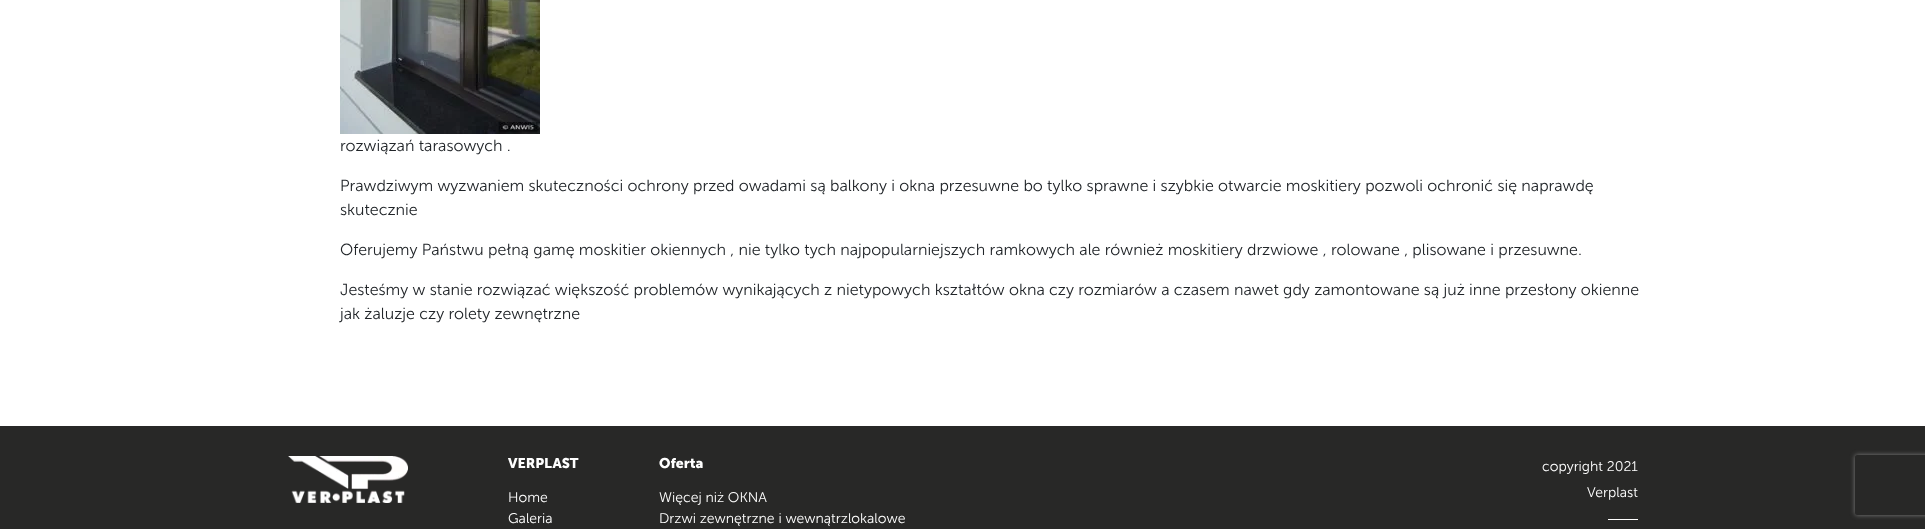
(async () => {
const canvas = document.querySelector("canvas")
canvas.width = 1925
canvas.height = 529
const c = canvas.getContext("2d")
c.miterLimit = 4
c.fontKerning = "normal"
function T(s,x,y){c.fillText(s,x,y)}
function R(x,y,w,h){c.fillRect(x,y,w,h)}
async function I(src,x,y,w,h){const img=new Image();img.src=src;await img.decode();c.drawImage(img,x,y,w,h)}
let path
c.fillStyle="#fff"
R(0,0,1925,529)
await I("1.png",340,0,200,134)
c.font="300 16px Museo Sans"
c.fillStyle="#212529"
T("rozwiązań tarasowych .",340,151)
T("Prawdziwym wyzwaniem skuteczności ochrony przed owadami są balkony i okna przesuwne bo tylko sprawne i szybkie otwarcie moskitiery pozwoli ochronić się naprawdę",340,191)
T("skutecznie",340,215)
T("Oferujemy Państwu pełną gamę moskitier okiennych , nie tylko tych najpopularniejszych ramkowych ale również moskitiery drzwiowe , rolowane , plisowane i przesuwne.",340,255)
T("Jesteśmy w stanie rozwiązać większość problemów wynikających z nietypowych kształtów okna czy rozmiarów a czasem nawet gdy zamontowane są już inne przesłony okienne",340,295)
T("jak żaluzje czy rolety zewnętrzne",340,319)
c.fillStyle="#282827"
R(0,426,1925,103)
await I("2.png",288,456,120,47)
c.font="bold 14px Museo Sans"
c.fillStyle="#fff"
T("VERPLAST",508,468)
c.font="300 14px Museo Sans"
T("Home",508,502)
T("Galeria",508,523)
c.font="bold 14px Museo Sans"
T("Oferta",659,468)
c.font="300 14px Museo Sans"
T("Więcej niż OKNA",659,502)
T("Drzwi zewnętrzne i wewnątrzlokalowe",659,523)
T("copyright 2021",1542,471)
T("Verplast",1587,497)
R(1608,519,30,1)
c.save()
path = new Path2D("M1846 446h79v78h-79zm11 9h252c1 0 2 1 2 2v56c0 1-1 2-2 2h-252c-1 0-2-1-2-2v-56c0-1 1-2 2-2z")
c.clip(path,"evenodd")
c.fillStyle="#808080"
c.filter="blur(2.5px)"
c.beginPath()
c.roundRect(1855,455,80,60,2)
c.fill()
c.filter="none"
c.restore()
})()
